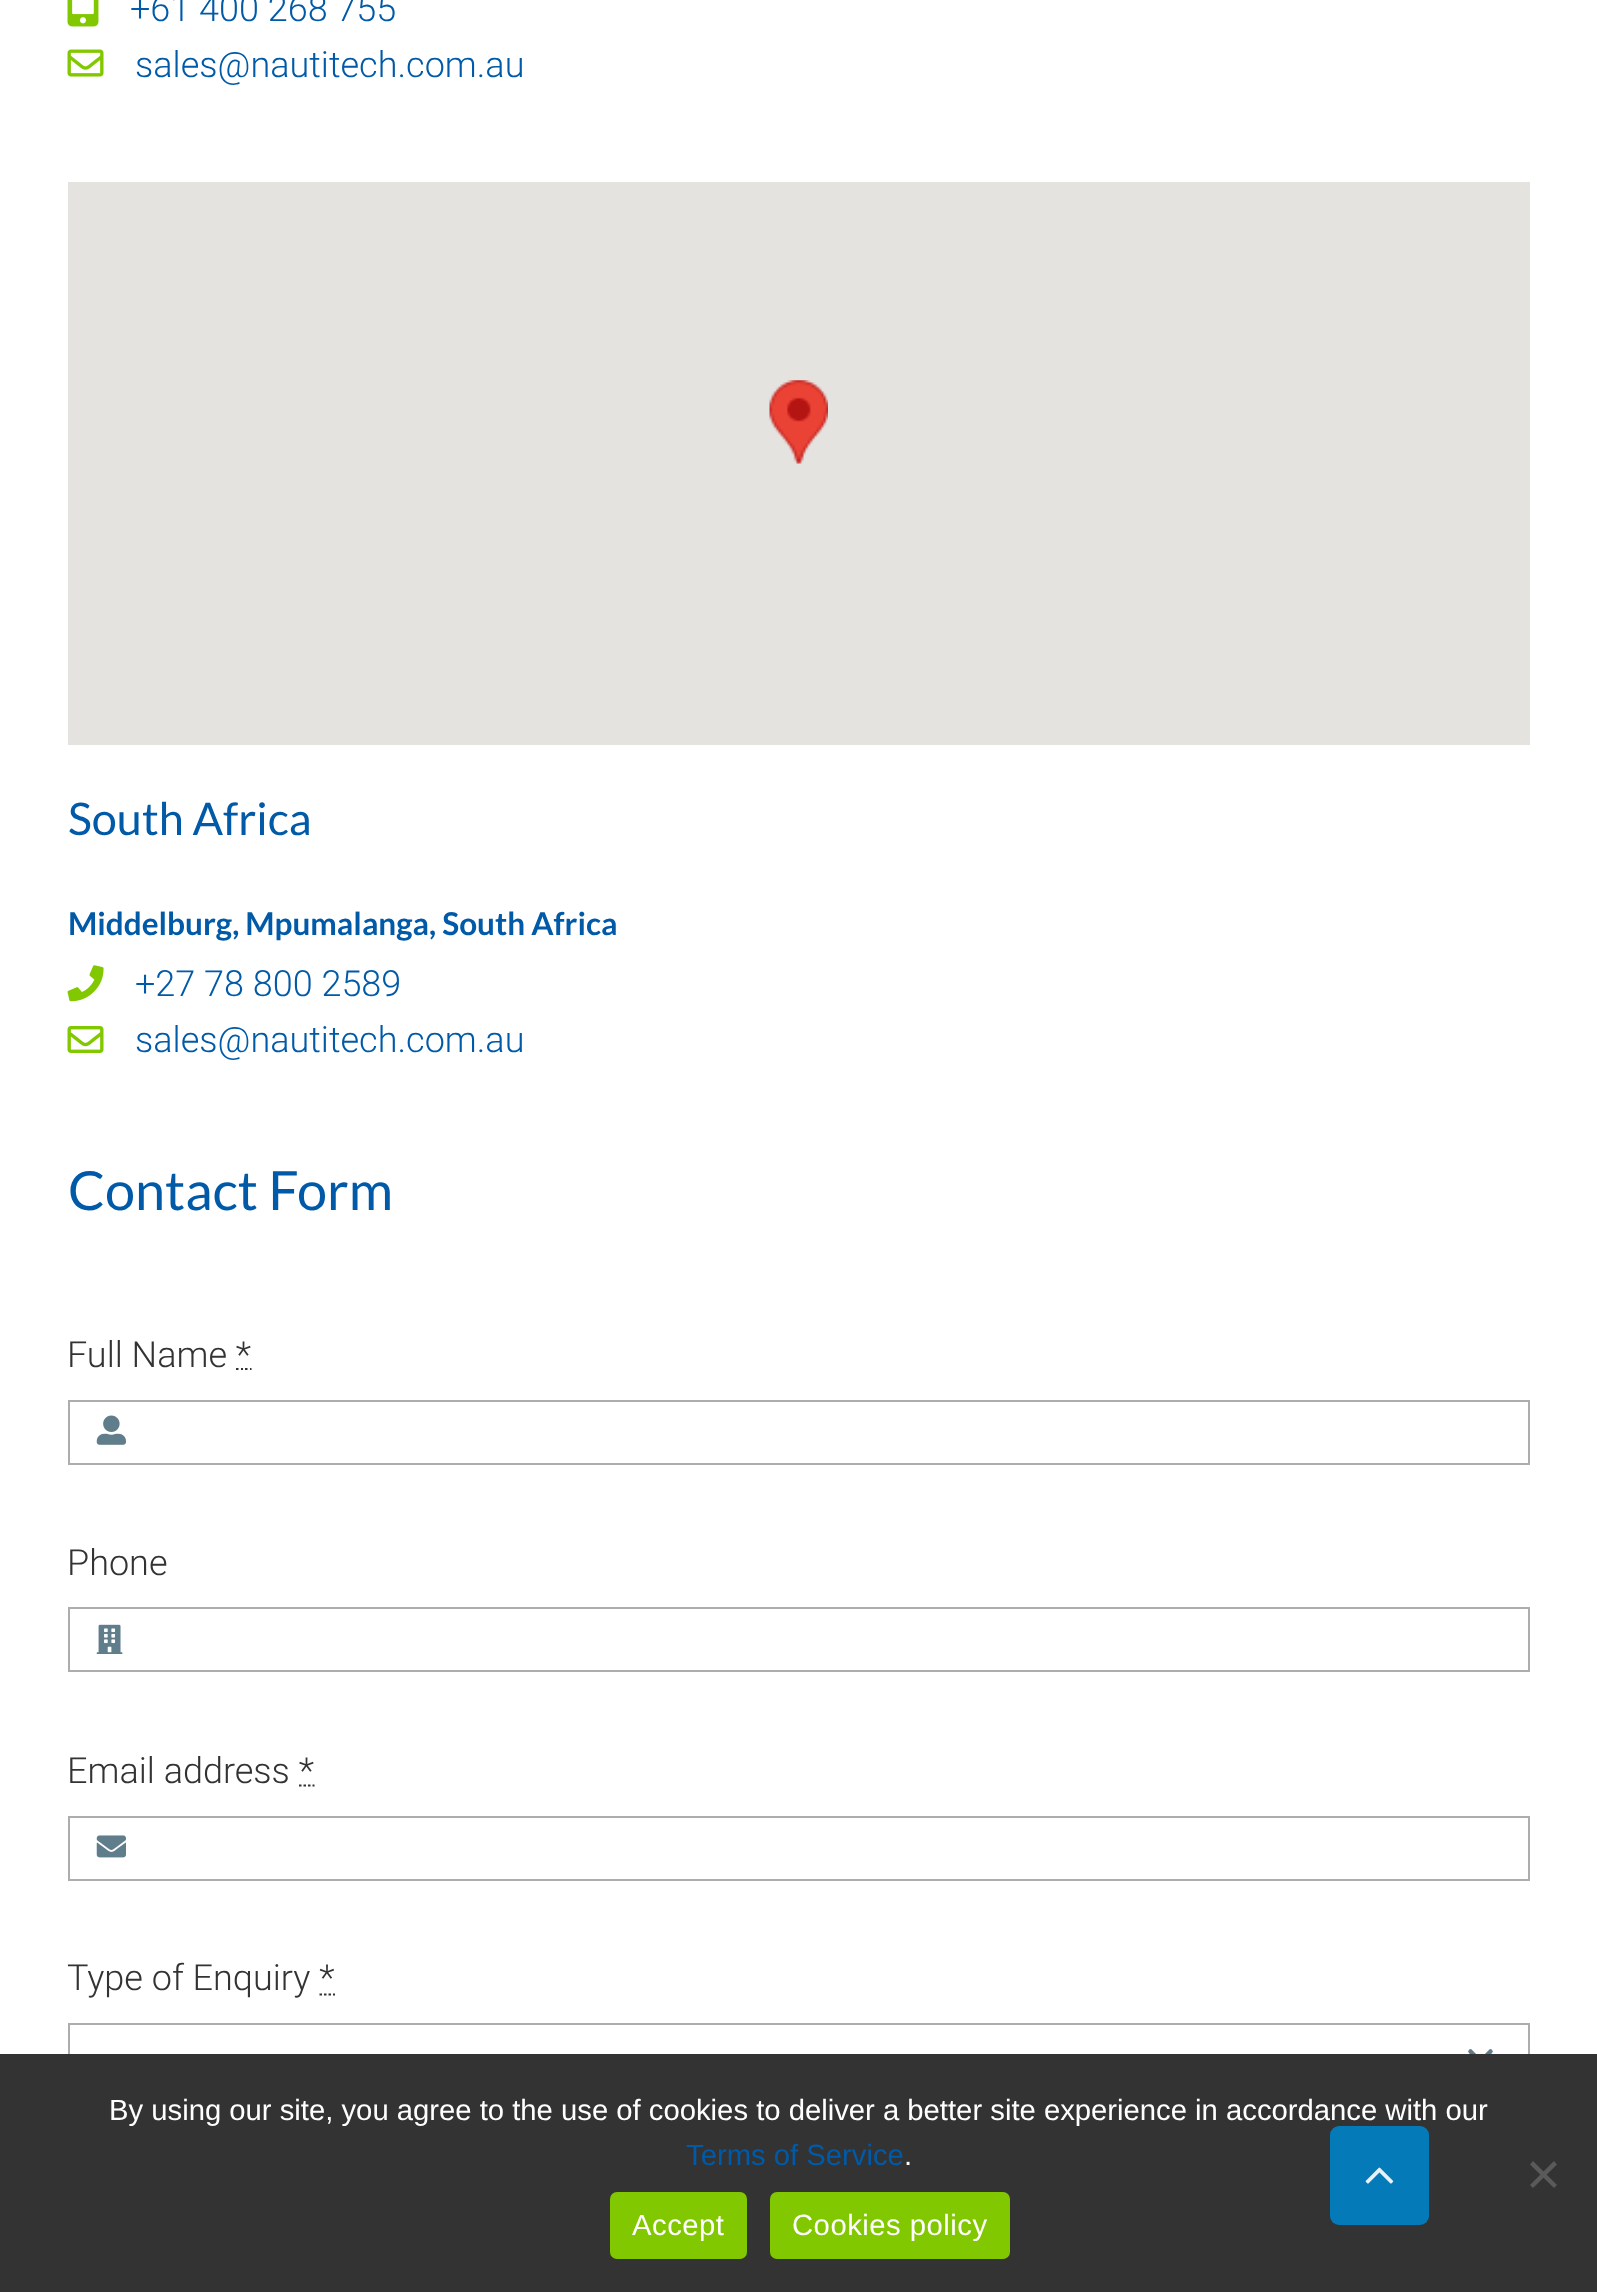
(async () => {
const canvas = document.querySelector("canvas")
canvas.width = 1597
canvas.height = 2292
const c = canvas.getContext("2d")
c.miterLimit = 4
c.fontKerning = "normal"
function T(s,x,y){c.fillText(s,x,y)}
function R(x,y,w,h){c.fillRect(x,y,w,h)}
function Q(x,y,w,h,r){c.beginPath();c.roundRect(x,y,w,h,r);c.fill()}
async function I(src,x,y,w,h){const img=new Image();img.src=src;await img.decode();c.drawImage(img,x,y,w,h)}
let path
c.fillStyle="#fff"
R(0,0,1597,2292)
await I("1.png",67,0,32,27)
c.font="300 36px Roboto"
c.fillStyle="#015aa8"
T("+61 400 268 755",130,21)
await I("2.png",67,49,37,28)
T("sales@nautitech.com.au",135,77)
c.fillStyle="#e5e3df"
R(68,182,1462,563)
await I("3.png",769,380,59,84)
c.font="45px Lato"
c.fillStyle="#015aa8"
T("South Africa",68,835)
c.font="bold 31.5px Lato"
T("Middelburg, Mpumalanga, South Africa",68,935)
await I("4.png",67,965,37,37)
c.font="300 36px Roboto"
T("+27 78 800 2589",135,996)
await I("5.png",67,1026,37,27)
T("sales@nautitech.com.au",135,1052)
c.font="54px Lato"
T("Contact Form",68,1210)
c.font="300 36px Roboto"
c.fillStyle="#333"
T("Full Name *",67,1367)
path = new Path2D("M236 1369h2.5m2.5 0h2m2 0h2.5m2.5 0h1.5")
c.strokeStyle="#333"
c.lineWidth=2.2
c.stroke(path)
c.strokeStyle="#adadad"
c.lineWidth=2
c.strokeRect(69,1401,1460,63)
await I("6.png",96,1415,30,30)
T("Phone",67,1575)
c.strokeRect(69,1608,1460,63)
await I("7.png",96,1624,27,30)
T("Email address *",67,1783)
path = new Path2D("M299 1785.5h2.5m2 0h2.5m2 0h2.5m2 0h2")
c.strokeStyle="#333"
c.lineWidth=2.2
c.stroke(path)
c.strokeStyle="#adadad"
c.lineWidth=2
c.strokeRect(69,1817,1460,63)
await I("8.png",96,1835,30,23)
T("Type of Enquiry *",67,1990)
path = new Path2D("M319.5 1994.5h2.5m2 0h2.5m2 0h2.5m2 0h2")
c.strokeStyle="#333"
c.lineWidth=2.2
c.stroke(path)
c.strokeStyle="#adadad"
c.lineWidth=2
c.strokeRect(69,2024,1460,63)
path = new Path2D("M1470.5 2051.5l10 10l10-10")
c.strokeStyle="#607d8b"
c.lineWidth=4.5
c.lineCap="round"
c.lineJoin="round"
c.stroke(path)
R(0,2054,1597,238)
c.font="29.25px Liberation Sans"
c.fillStyle="#fff"
T("By using our site, you agree to the use of cookies to deliver a better site experience in accordance with our",109,2120)
c.fillStyle="#015aa8"
T("Terms of Service",686,2165)
c.fillStyle="#fff"
T(".",904,2165)
c.fillStyle="#5a5a5a"
path = new Path2D("M1554 2161l3 3.5l-24 23.5l-3-3z")
c.fill(path)
path = new Path2D("M1530 2164.5l3-3.5l24 24l-3 3z")
c.fill(path)
c.fillStyle="#82c800"
Q(610,2192,137,67,7)
c.letterSpacing="0.5px"
c.fillStyle="#fff"
T("Accept",632,2235)
c.fillStyle="#82c800"
Q(770,2192,240,67,7)
c.fillStyle="#fff"
T("Cookies policy",792,2235)
c.fillStyle="#057ab9"
Q(1330,2126,99,99,9)
await I("9.png",1365,2167,29,17)
})()
